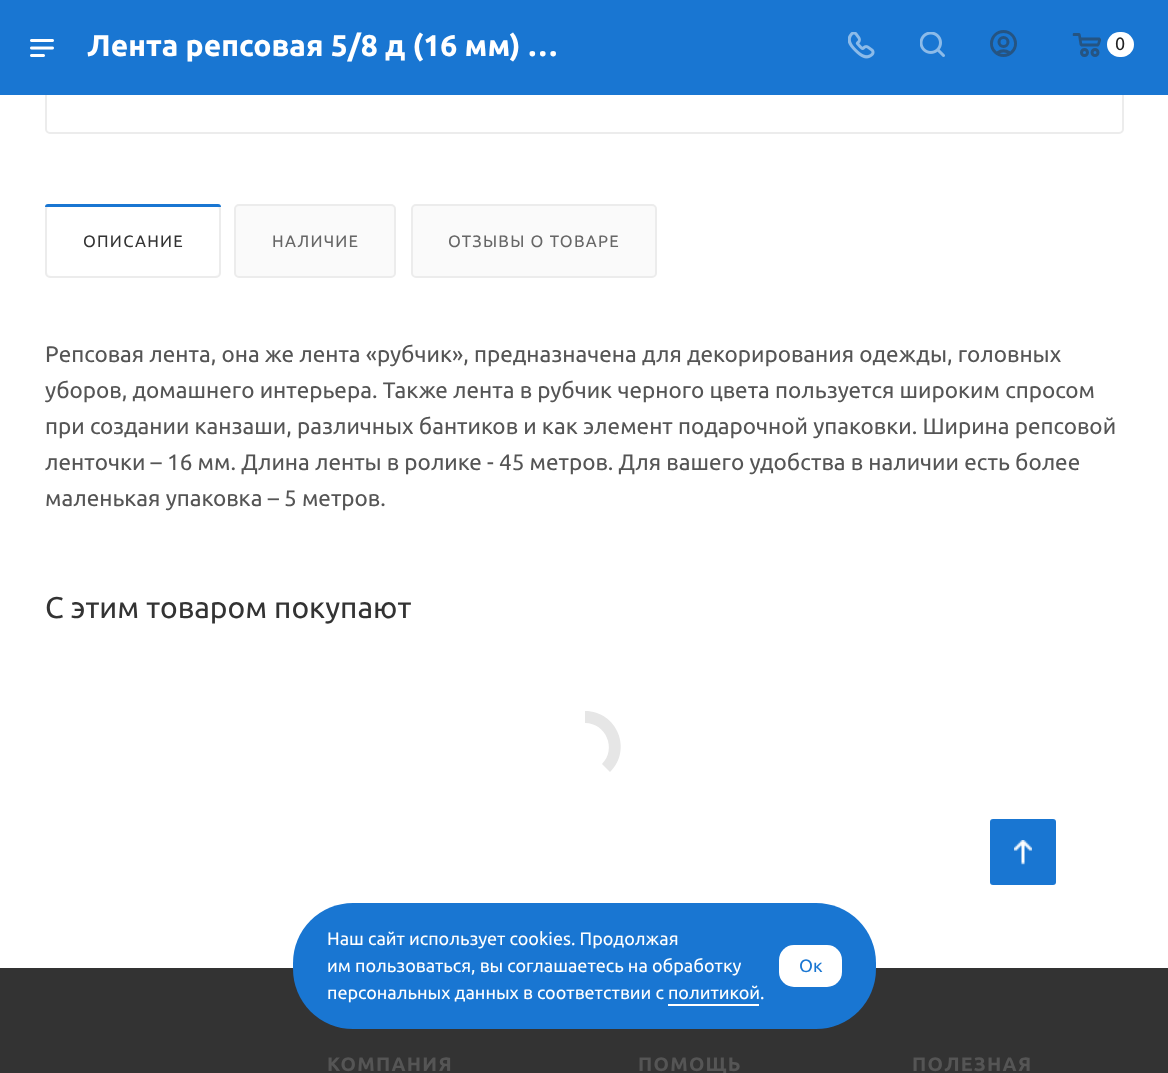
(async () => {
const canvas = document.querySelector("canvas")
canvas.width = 1168
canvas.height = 1073
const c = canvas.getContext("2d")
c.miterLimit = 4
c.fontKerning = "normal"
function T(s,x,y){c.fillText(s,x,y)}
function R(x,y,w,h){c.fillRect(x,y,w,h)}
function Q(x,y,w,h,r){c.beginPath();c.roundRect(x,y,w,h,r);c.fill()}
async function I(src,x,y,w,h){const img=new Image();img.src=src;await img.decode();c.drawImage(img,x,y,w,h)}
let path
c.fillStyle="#fff"
R(0,0,1168,1073)
c.beginPath()
c.roundRect(46,-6,1077,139,4)
c.strokeStyle="#ececec"
c.lineWidth=2
c.stroke()
c.fillStyle="#1976d2"
R(0,0,1168,95)
await I("1.png",30,39,24,18)
c.font="bold 30px Ubuntu"
c.fillStyle="#fff"
T("Лента репсовая 5/8 д (16 мм) …",87,56)
await I("2.png",848,32,27,27)
await I("3.png",920,32,25,25)
await I("4.png",990,30,27,27)
await I("5.png",1072,33,29,24)
Q(1107,32,27,25,12.5)
c.font="18px Ubuntu"
c.fillStyle="#222"
T("0",1115,50)
c.fillStyle="#fafafa"
c.beginPath()
c.roundRect(46,205,174,72,4)
c.fill()
c.stroke()
c.fillStyle="#fff"
Q(47,206,172,70,5)
c.fillStyle="#1976d2"
c.beginPath()
c.roundRect(45,204,176,3,[3,3,0,0])
c.fill()
c.letterSpacing="1.25px"
c.font="16.5px Ubuntu"
c.fillStyle="#333"
T("ОПИСАНИЕ",83,247)
c.fillStyle="#fafafa"
c.beginPath()
c.roundRect(235,205,160,72,4)
c.fill()
c.stroke()
c.fillStyle="#666"
T("НАЛИЧИЕ",272,247)
c.fillStyle="#fafafa"
c.beginPath()
c.roundRect(412,205,244,72,4)
c.fill()
c.stroke()
c.fillStyle="#666"
T("ОТЗЫВЫ О ТОВАРЕ",448,247)
c.letterSpacing="0px"
c.font="22.5px Ubuntu"
c.fillStyle="#555"
T("Репсовая лента, она же лента «рубчик», предназначена для декорирования одежды, головных",45,362)
T("уборов, домашнего интерьера. Также лента в рубчик черного цвета пользуется широким спросом",45,398)
T("при создании канзаши, различных бантиков и как элемент подарочной упаковки. Ширина репсовой",45,434)
T("ленточки – 16 мм. Длина ленты в ролике - 45 метров. Для вашего удобства в наличии есть более",45,470)
T("маленькая упаковка – 5 метров.",45,506)
c.font="30px Ubuntu"
c.fillStyle="#333"
T("С этим товаром покупают",45,618)
c.fillStyle="#e6e6e6"
path = new Path2D("M585 711c32 0 48 39 25 61l-8-8c15-15 4-41-17-41z")
c.fill(path)
c.fillStyle="#1976d2"
Q(990,819,66,66,3)
await I("6.png",1014,840,18,25)
c.fillStyle="#333"
R(0,968,1168,105)
c.fillStyle="#1976d2"
Q(293,903,583,126,60)
c.font="18px Ubuntu"
c.fillStyle="#fff"
T("Наш сайт использует cookies. Продолжая",327,945)
T("им пользоваться, вы соглашаетесь на обработку",327,972)
T("персональных данных в соответствии с политикой.",327,999)
R(668,1004,91,2)
Q(779,945,63,42,15)
c.fillStyle="#1976d2"
T("Ок",799,972)
c.letterSpacing="1.25px"
c.font="bold 19.5px Ubuntu"
c.fillStyle="#555"
T("КОМПАНИЯ",327,1071)
T("ПОМОЩЬ",638,1071)
T("ПОЛЕЗНАЯ",912,1071)
})()
